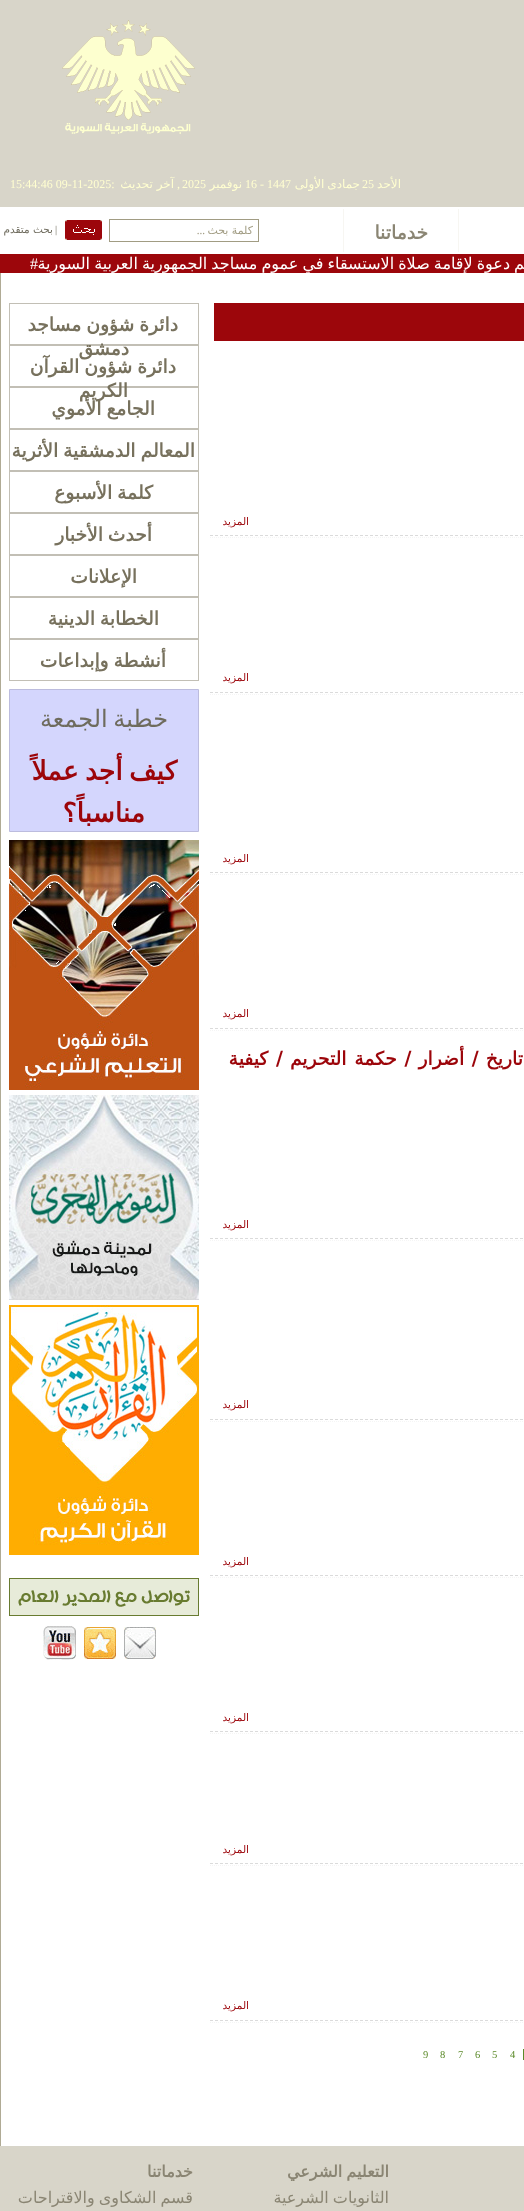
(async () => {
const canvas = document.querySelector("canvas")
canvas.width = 524
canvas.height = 2211
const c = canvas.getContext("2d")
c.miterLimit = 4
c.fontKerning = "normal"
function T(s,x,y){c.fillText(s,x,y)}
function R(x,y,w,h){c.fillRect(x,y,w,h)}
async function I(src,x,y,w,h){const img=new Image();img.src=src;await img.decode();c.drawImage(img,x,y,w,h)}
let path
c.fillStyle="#d8d5c9"
R(0,0,524,2211)
await I("1.png",62,20,133,114)
c.direction="rtl"
c.font="12px DejaVu Sans"
c.fillStyle="#fffed0"
T("الأحد",401,188)
c.direction="ltr"
c.font="12px Liberation Serif"
T("25",362,188)
c.wordSpacing="-1px"
c.direction="rtl"
c.font="12px DejaVu Sans"
T("جمادى الأولى",360,188)
c.wordSpacing="0px"
c.direction="ltr"
c.font="12px Liberation Serif"
T("16 - 1447",245,188)
c.direction="rtl"
c.font="12px DejaVu Sans"
T("نوفمبر",242,188)
c.direction="ltr"
c.font="12px Liberation Serif"
T("2025",182,188)
c.direction="rtl"
T(",",180,188)
c.font="12px DejaVu Sans"
T("آخر تحديث",174,188)
c.direction="ltr"
c.font="12px Liberation Serif"
T("15:44:46 09-11-2025:",10,188)
c.fillStyle="#fff"
R(0,207,524,47)
c.fillStyle="#f7f6f2"
R(458,209,1,43)
R(343,209,1,43)
c.direction="rtl"
c.font="bold 18.7px DejaVu Sans"
c.fillStyle="#8a8573"
T("خدماتنا",428,239)
c.strokeStyle="#a19c83"
c.strokeRect(109.5,219.5,149,22)
c.font="11px DejaVu Sans"
c.fillStyle="#a19c83"
T("كلمة بحث",253,234)
c.font="11px Liberation Serif"
T("...",205,234)
await I("2.png",65,220,37,20)
c.font="10.5px Liberation Serif"
c.fillStyle="#6e6b5d"
T("|",57,233)
c.font="10.5px DejaVu Sans"
T("بحث متقدم",53,233)
c.fillStyle="#9c060b"
R(0,254,524,19)
c.wordSpacing="-1px"
c.font="16px DejaVu Sans"
c.fillStyle="#fff"
T("تعميم دعوة لإقامة صلاة الاستسقاء في عموم مساجد الجمهورية العربية السورية",551,269)
c.wordSpacing="0px"
c.direction="ltr"
c.font="16px Liberation Serif"
T("#",30,269)
R(1,273,523,1873)
c.fillStyle="#b0ab95"
R(0,273,1,1873)
c.fillStyle="#9c060b"
R(214,303,310,38)
c.direction="rtl"
c.font="10.5px DejaVu Sans"
c.fillStyle="#9c050a"
T("المزيد",249,525)
path = new Path2D("M210 535.5h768")
c.strokeStyle="#dbdbdb"
c.setLineDash([3,2])
c.stroke(path)
path = new Path2D("M210 537.5h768")
c.strokeStyle="#f5f5f5"
c.setLineDash([1,1])
c.stroke(path)
T("المزيد",249,681)
path = new Path2D("M210 692.5h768")
c.strokeStyle="#dbdbdb"
c.setLineDash([3,2])
c.stroke(path)
path = new Path2D("M210 694.5h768")
c.strokeStyle="#f5f5f5"
c.setLineDash([1,1])
c.stroke(path)
T("المزيد",249,862)
path = new Path2D("M210 872.5h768")
c.strokeStyle="#dbdbdb"
c.setLineDash([3,2])
c.stroke(path)
path = new Path2D("M210 874.5h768")
c.strokeStyle="#f5f5f5"
c.setLineDash([1,1])
c.stroke(path)
T("المزيد",249,1017)
path = new Path2D("M210 1028.5h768")
c.strokeStyle="#dbdbdb"
c.setLineDash([3,2])
c.stroke(path)
path = new Path2D("M210 1030.5h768")
c.strokeStyle="#f5f5f5"
c.setLineDash([1,1])
c.stroke(path)
c.wordSpacing="1.75px"
c.font="bold 18.7px DejaVu Sans"
T("الربــا (تاريخ / أضرار / حكمة التحريم / كيفية",581,1065)
c.wordSpacing="0px"
c.font="10.5px DejaVu Sans"
T("المزيد",249,1228)
path = new Path2D("M210 1238.5h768")
c.strokeStyle="#dbdbdb"
c.setLineDash([3,2])
c.stroke(path)
path = new Path2D("M210 1240.5h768")
c.strokeStyle="#f5f5f5"
c.setLineDash([1,1])
c.stroke(path)
T("المزيد",249,1408)
path = new Path2D("M210 1419.5h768")
c.strokeStyle="#dbdbdb"
c.setLineDash([3,2])
c.stroke(path)
path = new Path2D("M210 1421.5h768")
c.strokeStyle="#f5f5f5"
c.setLineDash([1,1])
c.stroke(path)
T("المزيد",249,1565)
path = new Path2D("M210 1575.5h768")
c.strokeStyle="#dbdbdb"
c.setLineDash([3,2])
c.stroke(path)
path = new Path2D("M210 1577.5h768")
c.strokeStyle="#f5f5f5"
c.setLineDash([1,1])
c.stroke(path)
T("المزيد",249,1721)
path = new Path2D("M210 1731.5h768")
c.strokeStyle="#dbdbdb"
c.setLineDash([3,2])
c.stroke(path)
path = new Path2D("M210 1733.5h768")
c.strokeStyle="#f5f5f5"
c.setLineDash([1,1])
c.stroke(path)
T("المزيد",249,1853)
path = new Path2D("M210 1863.5h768")
c.strokeStyle="#dbdbdb"
c.setLineDash([3,2])
c.stroke(path)
path = new Path2D("M210 1865.5h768")
c.strokeStyle="#f5f5f5"
c.setLineDash([1,1])
c.stroke(path)
T("المزيد",249,2009)
path = new Path2D("M210 2020.5h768")
c.strokeStyle="#dbdbdb"
c.setLineDash([3,2])
c.stroke(path)
path = new Path2D("M210 2022.5h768")
c.strokeStyle="#f5f5f5"
c.setLineDash([1,1])
c.stroke(path)
c.fillStyle="#5b8a29"
R(523,2049,1,11)
c.direction="ltr"
c.font="10.5px Liberation Serif"
T("4",510,2058)
T("5",492,2058)
T("6",475,2058)
T("7",458,2058)
T("8",440,2058)
T("9",423,2058)
c.strokeStyle="#c2bfb5"
c.setLineDash([])
c.strokeRect(9.5,303.5,189,41)
c.wordSpacing="-1px"
c.direction="rtl"
c.font="bold 18.7px DejaVu Sans"
c.fillStyle="#77715d"
T("دائرة شؤون مساجد",178,331)
c.strokeRect(9.5,345.5,189,41)
c.wordSpacing="0px"
T("دمشق",129,355)
c.wordSpacing="-1px"
T("دائرة شؤون القرآن",176,373)
c.strokeRect(9.5,387.5,189,41)
c.wordSpacing="0px"
T("الكريم",128,397)
c.wordSpacing="-1px"
T("الجامع الأموي",155,415)
c.strokeRect(9.5,429.5,189,41)
T("المعالم الدمشقية الأثرية",195,457)
c.strokeRect(9.5,471.5,189,41)
T("كلمة الأسبوع",153,499)
c.strokeRect(9.5,513.5,189,41)
T("أحدث الأخبار",152,541)
c.strokeRect(9.5,555.5,189,41)
c.wordSpacing="0px"
T("الإعلانات",137,583)
c.strokeRect(9.5,597.5,189,41)
c.wordSpacing="-1px"
T("الخطابة الدينية",159,625)
c.strokeRect(9.5,639.5,189,41)
T("أنشطة وإبداعات",166,667)
c.fillStyle="#d4d6fd"
c.beginPath()
c.rect(9.5,689.5,189,142)
c.fill()
c.strokeStyle="#bcbcde"
c.stroke()
c.wordSpacing="-2px"
c.font="24px DejaVu Sans"
c.fillStyle="#6e6b5d"
T("خطبة الجمعة",168,727)
c.font="bold 26.5px DejaVu Sans"
c.fillStyle="#9c050a"
T("كيف أجد عملاً",177,780)
c.wordSpacing="0px"
T("مناسباً؟",145,822)
await I("3.png",9,840,190,250)
await I("4.png",9,1095,190,205)
await I("5.png",9,1305,190,250)
await I("6.png",9,1578,190,38)
await I("7.png",124,1627,32,32)
await I("8.png",84,1627,32,32)
await I("9.png",43,1626,33,34)
c.wordSpacing="-1px"
c.font="bold 16px DejaVu Sans"
c.fillStyle="#8a8573"
T("التعليم الشرعي",389,2177)
c.font="16px DejaVu Sans"
T("الثانويات الشرعية",389,2203)
c.wordSpacing="0px"
c.font="bold 16px DejaVu Sans"
T("خدماتنا",193,2177)
c.wordSpacing="-1px"
c.font="16px DejaVu Sans"
T("قسم الشكاوى والاقتراحات",193,2203)
})()
